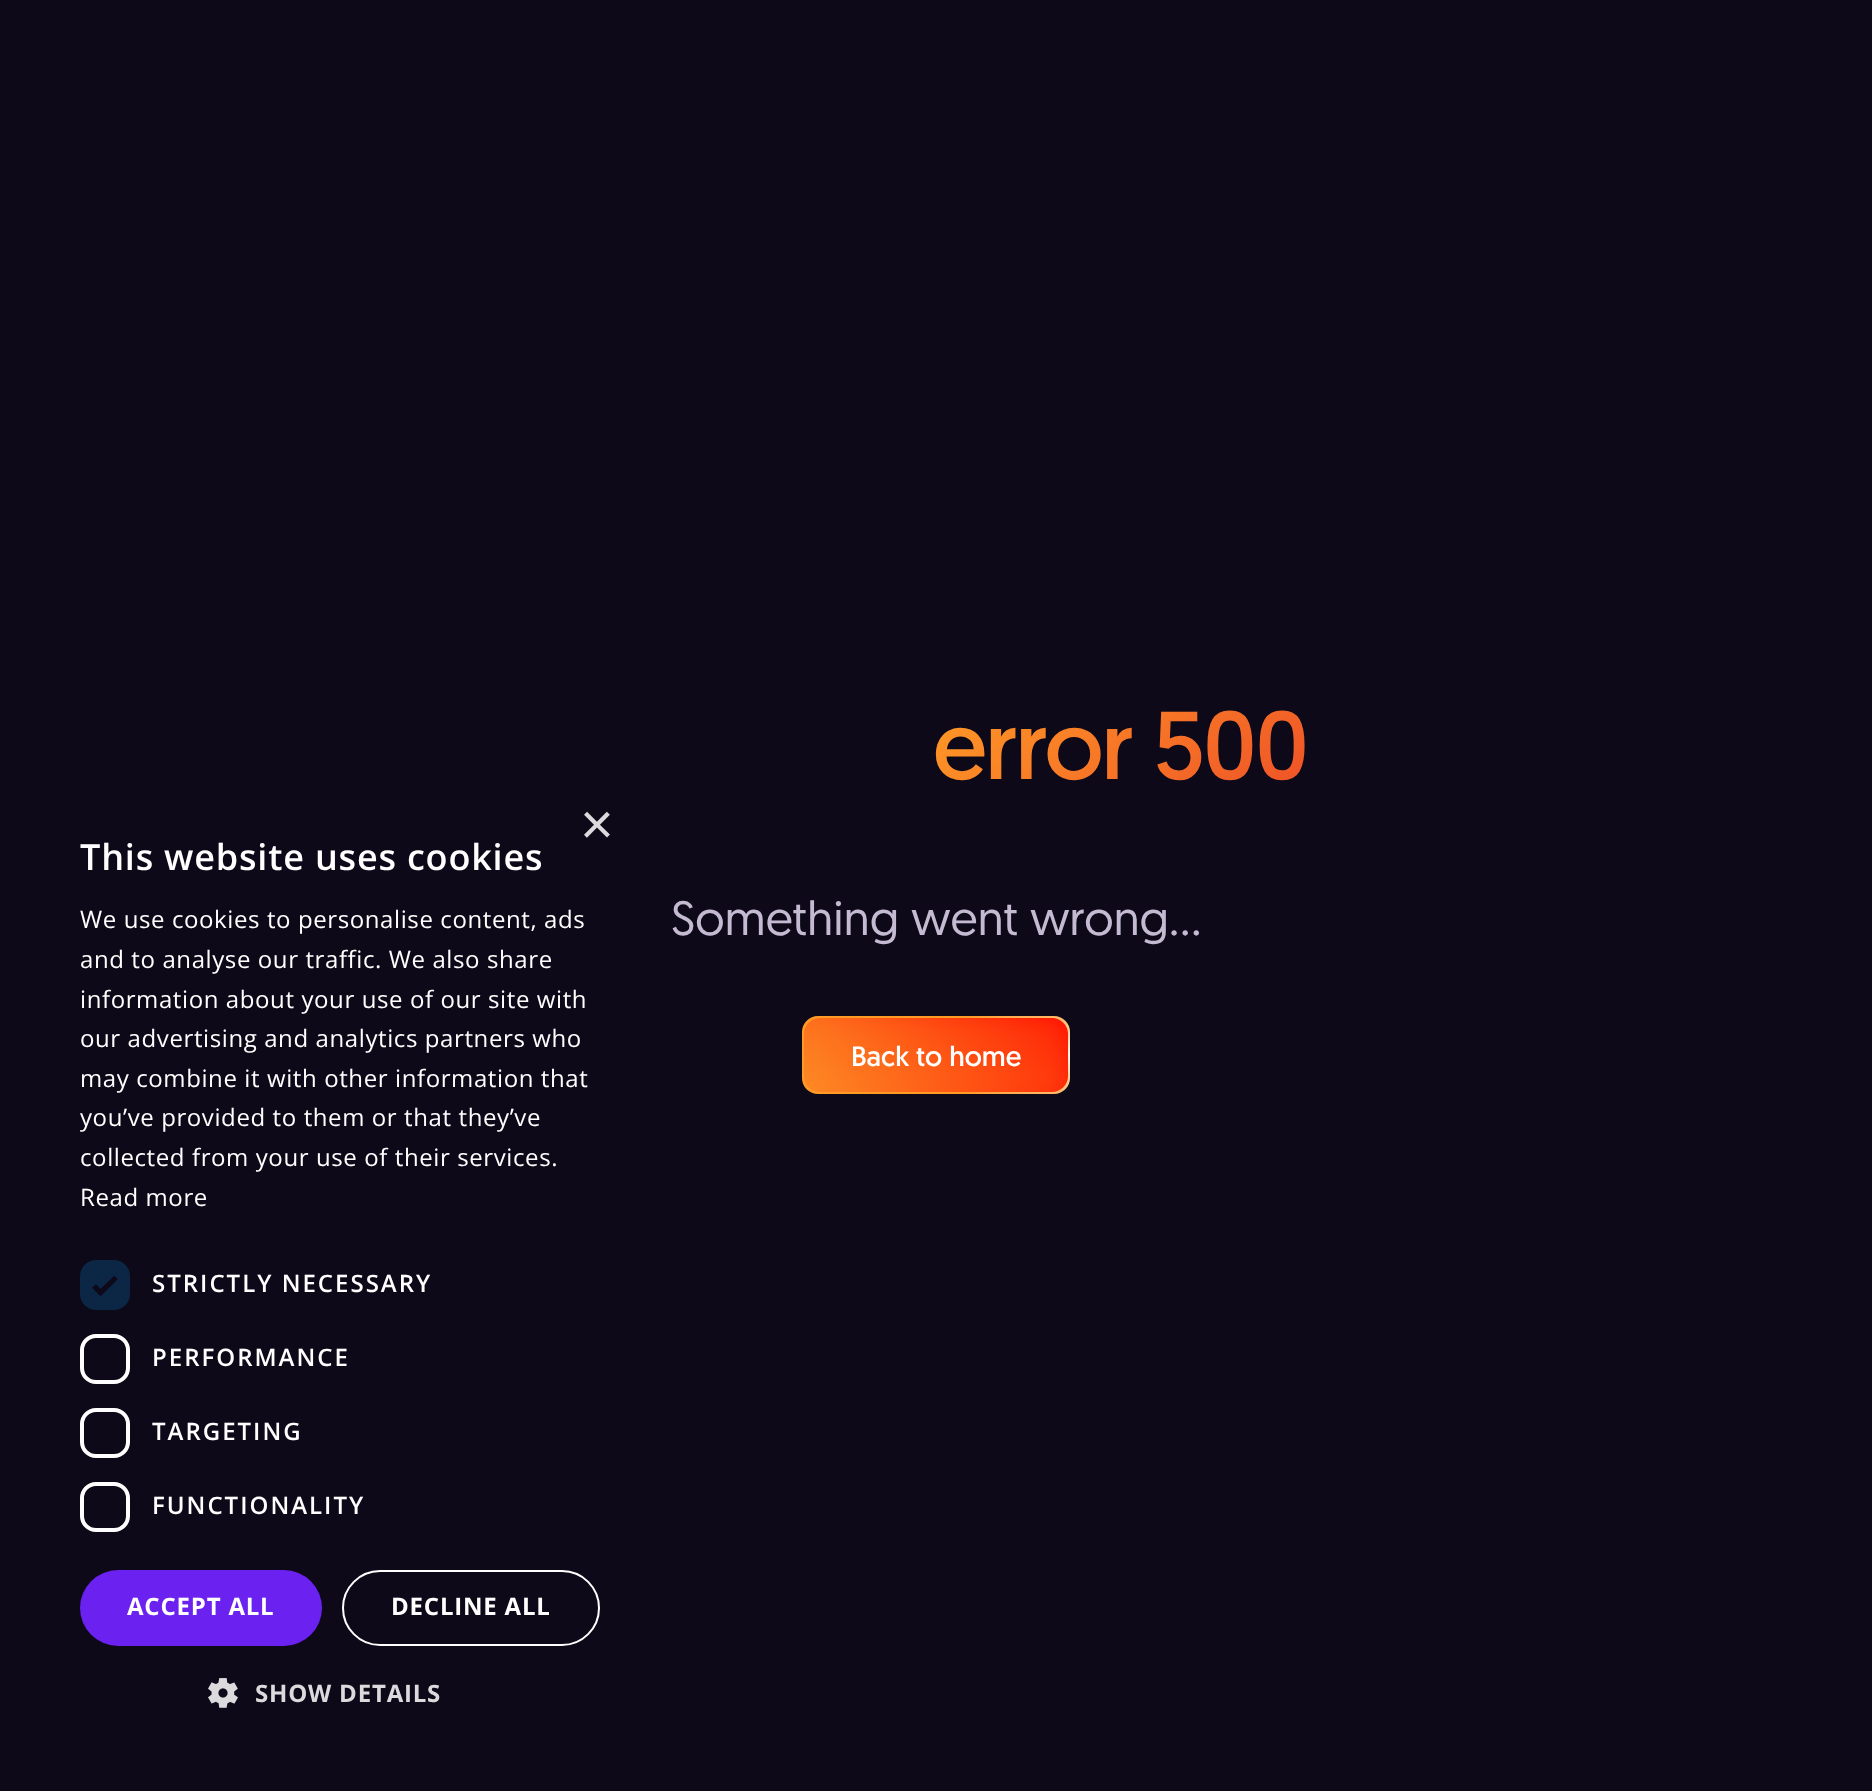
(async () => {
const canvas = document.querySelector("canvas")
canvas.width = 1872
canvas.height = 1791
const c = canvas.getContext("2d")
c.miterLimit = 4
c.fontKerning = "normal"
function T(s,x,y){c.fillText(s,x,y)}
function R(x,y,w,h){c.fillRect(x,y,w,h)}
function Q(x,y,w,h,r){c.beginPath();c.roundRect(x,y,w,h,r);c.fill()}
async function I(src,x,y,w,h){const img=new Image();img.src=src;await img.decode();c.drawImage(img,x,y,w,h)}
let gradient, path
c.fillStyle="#0e0918"
R(0,0,1872,1791)
c.font="58px Liberation Sans"
c.fillStyle="#dbdadc"
T("×",580,844)
c.letterSpacing="0.8px"
c.font="600 36px Open Sans"
c.fillStyle="#fff"
T("This website uses cookies",80,870)
c.letterSpacing="0.6px"
c.font="24px Open Sans"
T("We use cookies to personalise content, ads",80,928)
T("and to analyse our traffic. We also share",80,968)
T("information about your use of our site with",80,1008)
T("our advertising and analytics partners who",80,1047)
T("may combine it with other information that",80,1087)
T("you’ve provided to them or that they’ve",80,1126)
T("collected from your use of their services.",80,1166)
T("Read more",80,1206)
c.fillStyle="#0c2646"
Q(80,1260,50,50,16)
path = new Path2D("M94 1286l6.5 6.5l15.5-15")
c.strokeStyle="#0e0918"
c.lineWidth=5.2
c.stroke(path)
c.letterSpacing="2px"
c.font="600 24px Open Sans"
c.fillStyle="#fff"
T("STRICTLY NECESSARY",152,1292)
c.beginPath()
c.roundRect(82,1336,46,46,14)
c.strokeStyle="#fff"
c.lineWidth=4
c.stroke()
T("PERFORMANCE",152,1366)
c.beginPath()
c.roundRect(82,1410,46,46,14)
c.stroke()
T("TARGETING",152,1440)
c.beginPath()
c.roundRect(82,1484,46,46,14)
c.stroke()
T("FUNCTIONALITY",152,1514)
c.fillStyle="#6b21ef"
Q(80,1570,242,76,38)
c.letterSpacing="0.8px"
c.font="bold 24px Open Sans"
c.fillStyle="#fff"
T("ACCEPT ALL",127,1615)
c.beginPath()
c.roundRect(343,1571,256,74,37)
c.lineWidth=2
c.stroke()
T("DECLINE ALL",391,1615)
await I("1.png",208,1678,30,30)
c.fillStyle="#dbdadc"
T("SHOW DETAILS",255,1702)
c.letterSpacing="-2px"
c.font="96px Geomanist"
gradient = c.createLinearGradient(1016,627,1227,878)
gradient.addColorStop(0,"#ff9b26")
gradient.addColorStop(1,"#ee4f27")
c.fillStyle = gradient
T("error 500",933,779)
c.letterSpacing="0px"
c.font="48px 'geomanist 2'"
c.fillStyle="#c4bbd3"
T("Something went wrong...",671,935)
gradient = c.createRadialGradient(1070,2722.58,0,1070,2722.58,160)
gradient.addColorStop(0,"#fff")
gradient.addColorStop(.9,"#ff9b26")
c.fillStyle = gradient
c.beginPath()
c.roundRect(802,1016,268,78,16)
c.save()
c.clip()
c.scale(1,62 / 160)
c.fillRect(0,0,1872,4622)
c.restore()
gradient = c.createLinearGradient(1021,971,852,1140)
gradient.addColorStop(0,"#ff0c00")
gradient.addColorStop(1,"#fd8925")
c.fillStyle = gradient
Q(804,1018,264,74,16)
c.save()
c.beginPath()
c.roundRect(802,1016,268,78,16)
c.clip()
c.fillStyle="#ff9b262b"
c.filter="blur(10px)"
c.beginPath()
c.roundRect(804,1018,264,74,16)
c.fill()
c.filter="none"
c.restore()
c.font="28px Geomanist"
c.fillStyle="#fff"
T("Back to home",851,1066)
})()
